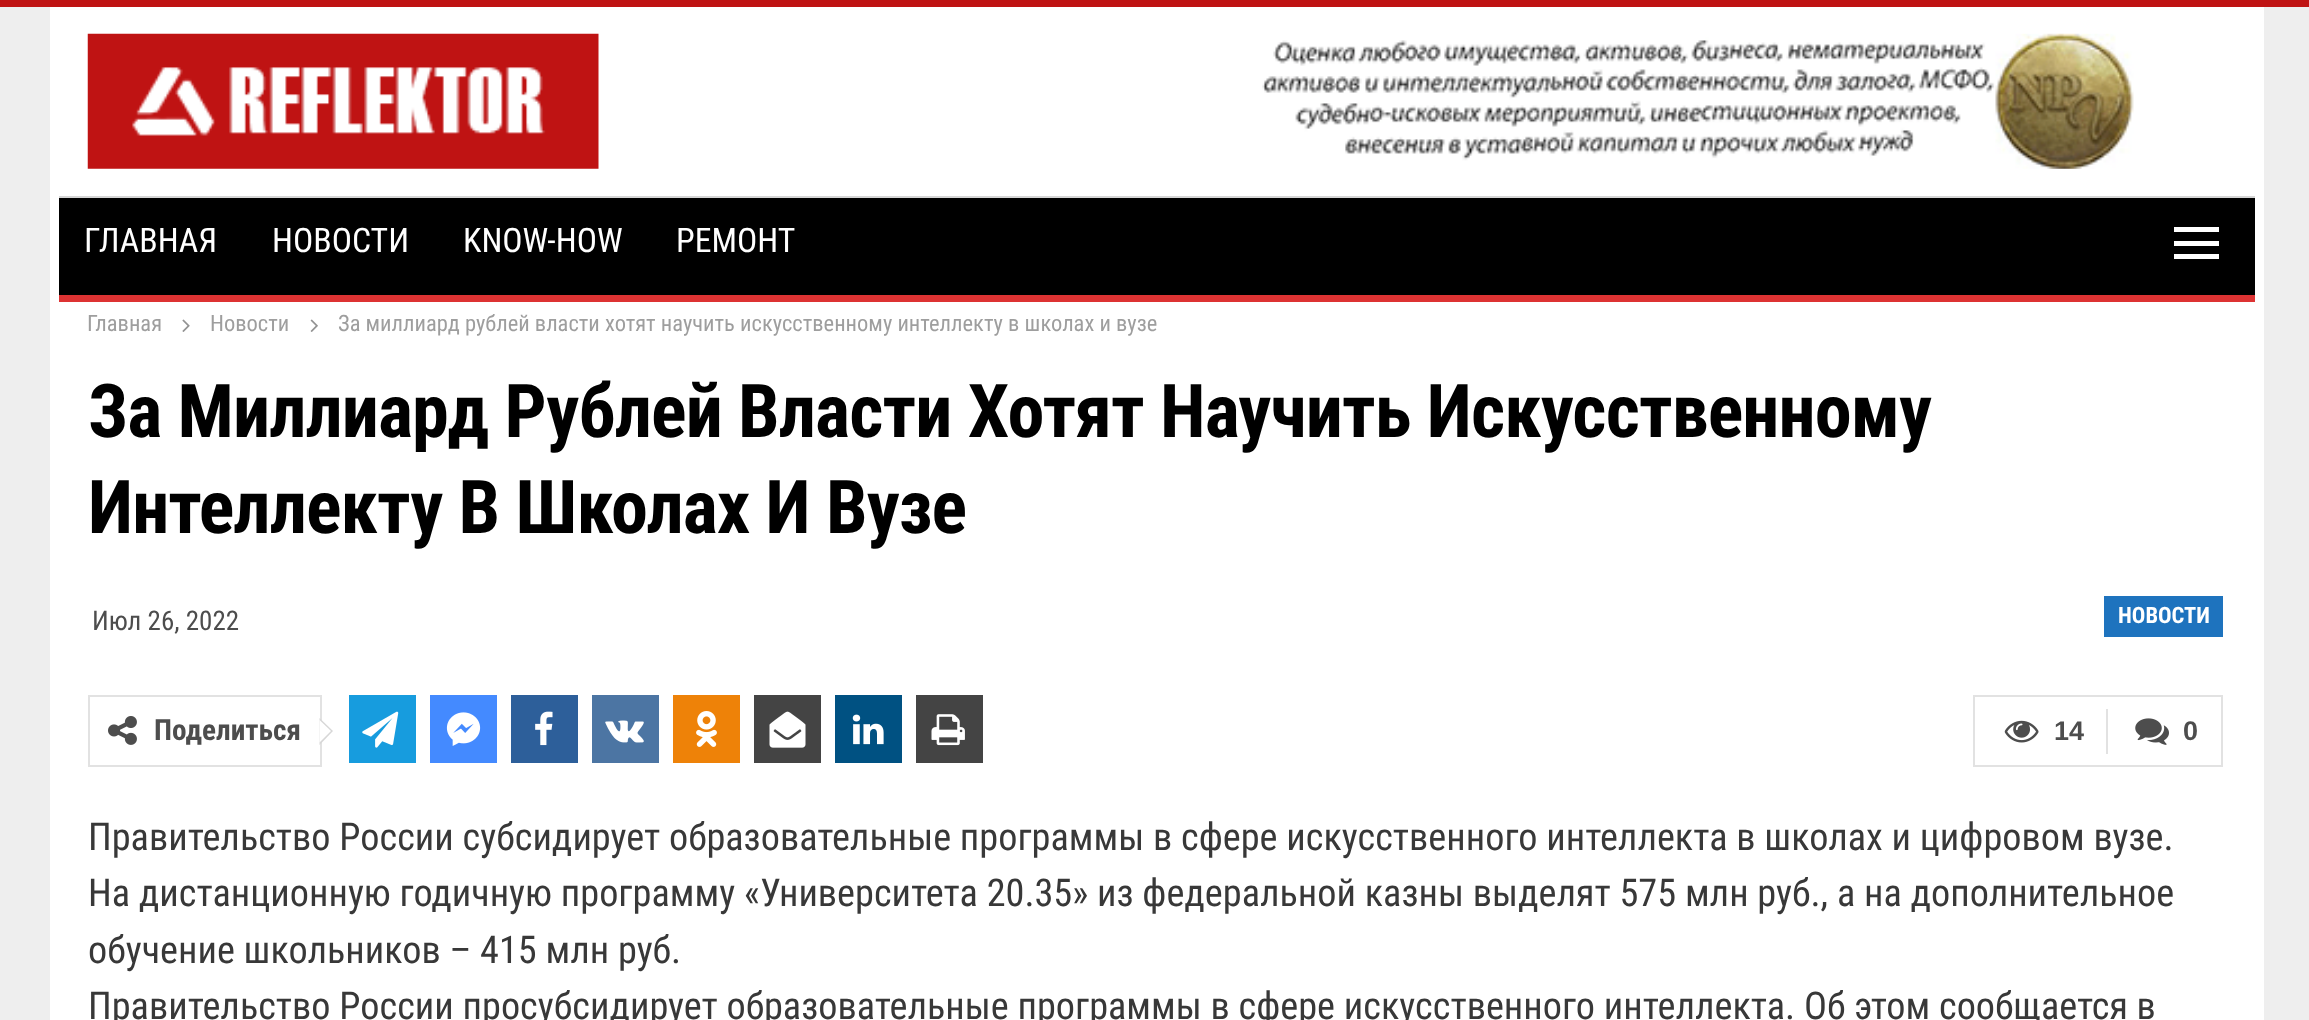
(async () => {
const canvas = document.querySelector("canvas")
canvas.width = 2309
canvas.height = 1020
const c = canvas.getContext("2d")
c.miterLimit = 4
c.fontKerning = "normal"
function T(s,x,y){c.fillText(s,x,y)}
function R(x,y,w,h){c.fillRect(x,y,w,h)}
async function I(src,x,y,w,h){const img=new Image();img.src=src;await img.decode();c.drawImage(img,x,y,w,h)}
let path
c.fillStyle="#eee"
R(0,0,2309,1020)
c.fillStyle="#bf1313"
R(0,0,2309,7)
c.fillStyle="#fff"
R(50,7,2214,1013)
await I("1.png",87,33,512,136)
await I("2.png",1262,33,872,136)
c.fillStyle="#000"
R(59,198,2196,97)
c.fillStyle="#d6d6d6"
R(59,196,2196,2)
c.fillStyle="#d33"
R(59,295,2196,7)
c.font="33.75px Roboto Condensed"
c.fillStyle="#fff"
T("ГЛАВНАЯ",84,252)
T("НОВОСТИ",272,252)
T("KNOW-HOW",463,252)
T("РЕМОНТ",676,252)
R(2174,241,45,5)
R(2174,227,45,5)
R(2174,254,45,5)
c.font="22.5px Roboto Condensed"
c.fillStyle="#9e9e9e"
T("Главная",87,331)
await I("3.png",182,319,8,13)
T("Новости",210,331)
await I("4.png",310,319,8,13)
T("За миллиард рублей власти хотят научить искусственному интеллекту в школах и вузе",338,331)
c.letterSpacing="-0.9px"
c.font="bold 74.25px Roboto Condensed"
c.fillStyle="#000"
T("За Миллиард Рублей Власти Хотят Научить Искусственному",88,437)
T("Интеллекту В Школах И Вузе",88,533)
c.letterSpacing="0px"
c.font="27px Roboto Condensed"
c.fillStyle="#4d4d4d"
T("Июл 26, 2022",92,630)
c.fillStyle="#1e73be"
R(2104,596,119,41)
c.font="bold 22.5px Roboto Condensed"
c.fillStyle="#fff"
T("НОВОСТИ",2118,623)
c.strokeStyle="#e2e2e2"
c.lineWidth=2
c.strokeRect(89,696,232,70)
await I("5.png",108,716,29,29)
c.font="bold 29.25px Roboto Condensed"
c.fillStyle="#4d4d4d"
T("Поделиться",154,740)
c.fillStyle="#d7d7d7"
path = new Path2D("M319.5 745v-27l13.5 13z")
c.fill(path)
c.fillStyle="#fff"
path = new Path2D("M319.5 742.5v-22.5l11.5 11z")
c.fill(path)
c.fillStyle="#179cde"
R(349,695,67,68)
await I("6.png",362,711,37,37)
c.fillStyle="#448aff"
R(430,695,67,68)
await I("7.png",446,712,35,34)
c.fillStyle="#2d5f9a"
R(511,695,67,68)
await I("8.png",535,711,18,35)
c.fillStyle="#4c75a3"
R(592,695,67,68)
await I("9.png",605,720,39,23)
c.fillStyle="#ee8208"
R(673,695,67,68)
await I("10.png",696,711,21,36)
c.fillStyle="#444"
R(754,695,67,68)
await I("11.png",769,711,37,37)
c.fillStyle="#005182"
R(835,695,67,68)
await I("12.png",852,714,32,31)
c.fillStyle="#444"
R(916,695,67,68)
await I("13.png",931,714,34,32)
c.fillStyle="#e2e2e2"
R(1973,695,250,2)
R(2221,695,2,72)
R(1973,765,250,2)
R(1973,695,2,72)
await I("14.png",2004,720,35,23)
c.font="bold 27px Liberation Sans"
c.fillStyle="#4d4d4d"
T("14",2054,740)
c.fillStyle="#e2e2e2"
R(2106,709,2,45)
await I("15.png",2135,718,34,27)
c.fillStyle="#4d4d4d"
T("0",2183,740)
c.font="38.25px Roboto Condensed"
c.fillStyle="#383838"
T("Правительство России субсидирует образовательные программы в сфере искусственного интеллекта в школах и цифровом вузе.",88,850)
T("На дистанционную годичную программу «Университета 20.35» из федеральной казны выделят 575 млн руб., а на дополнительное",88,906)
T("обучение школьников – 415 млн руб.",88,963)
T("Правительство России просубсидирует образовательные программы в сфере искусственного интеллекта. Об этом сообщается в",88,1019)
})()
